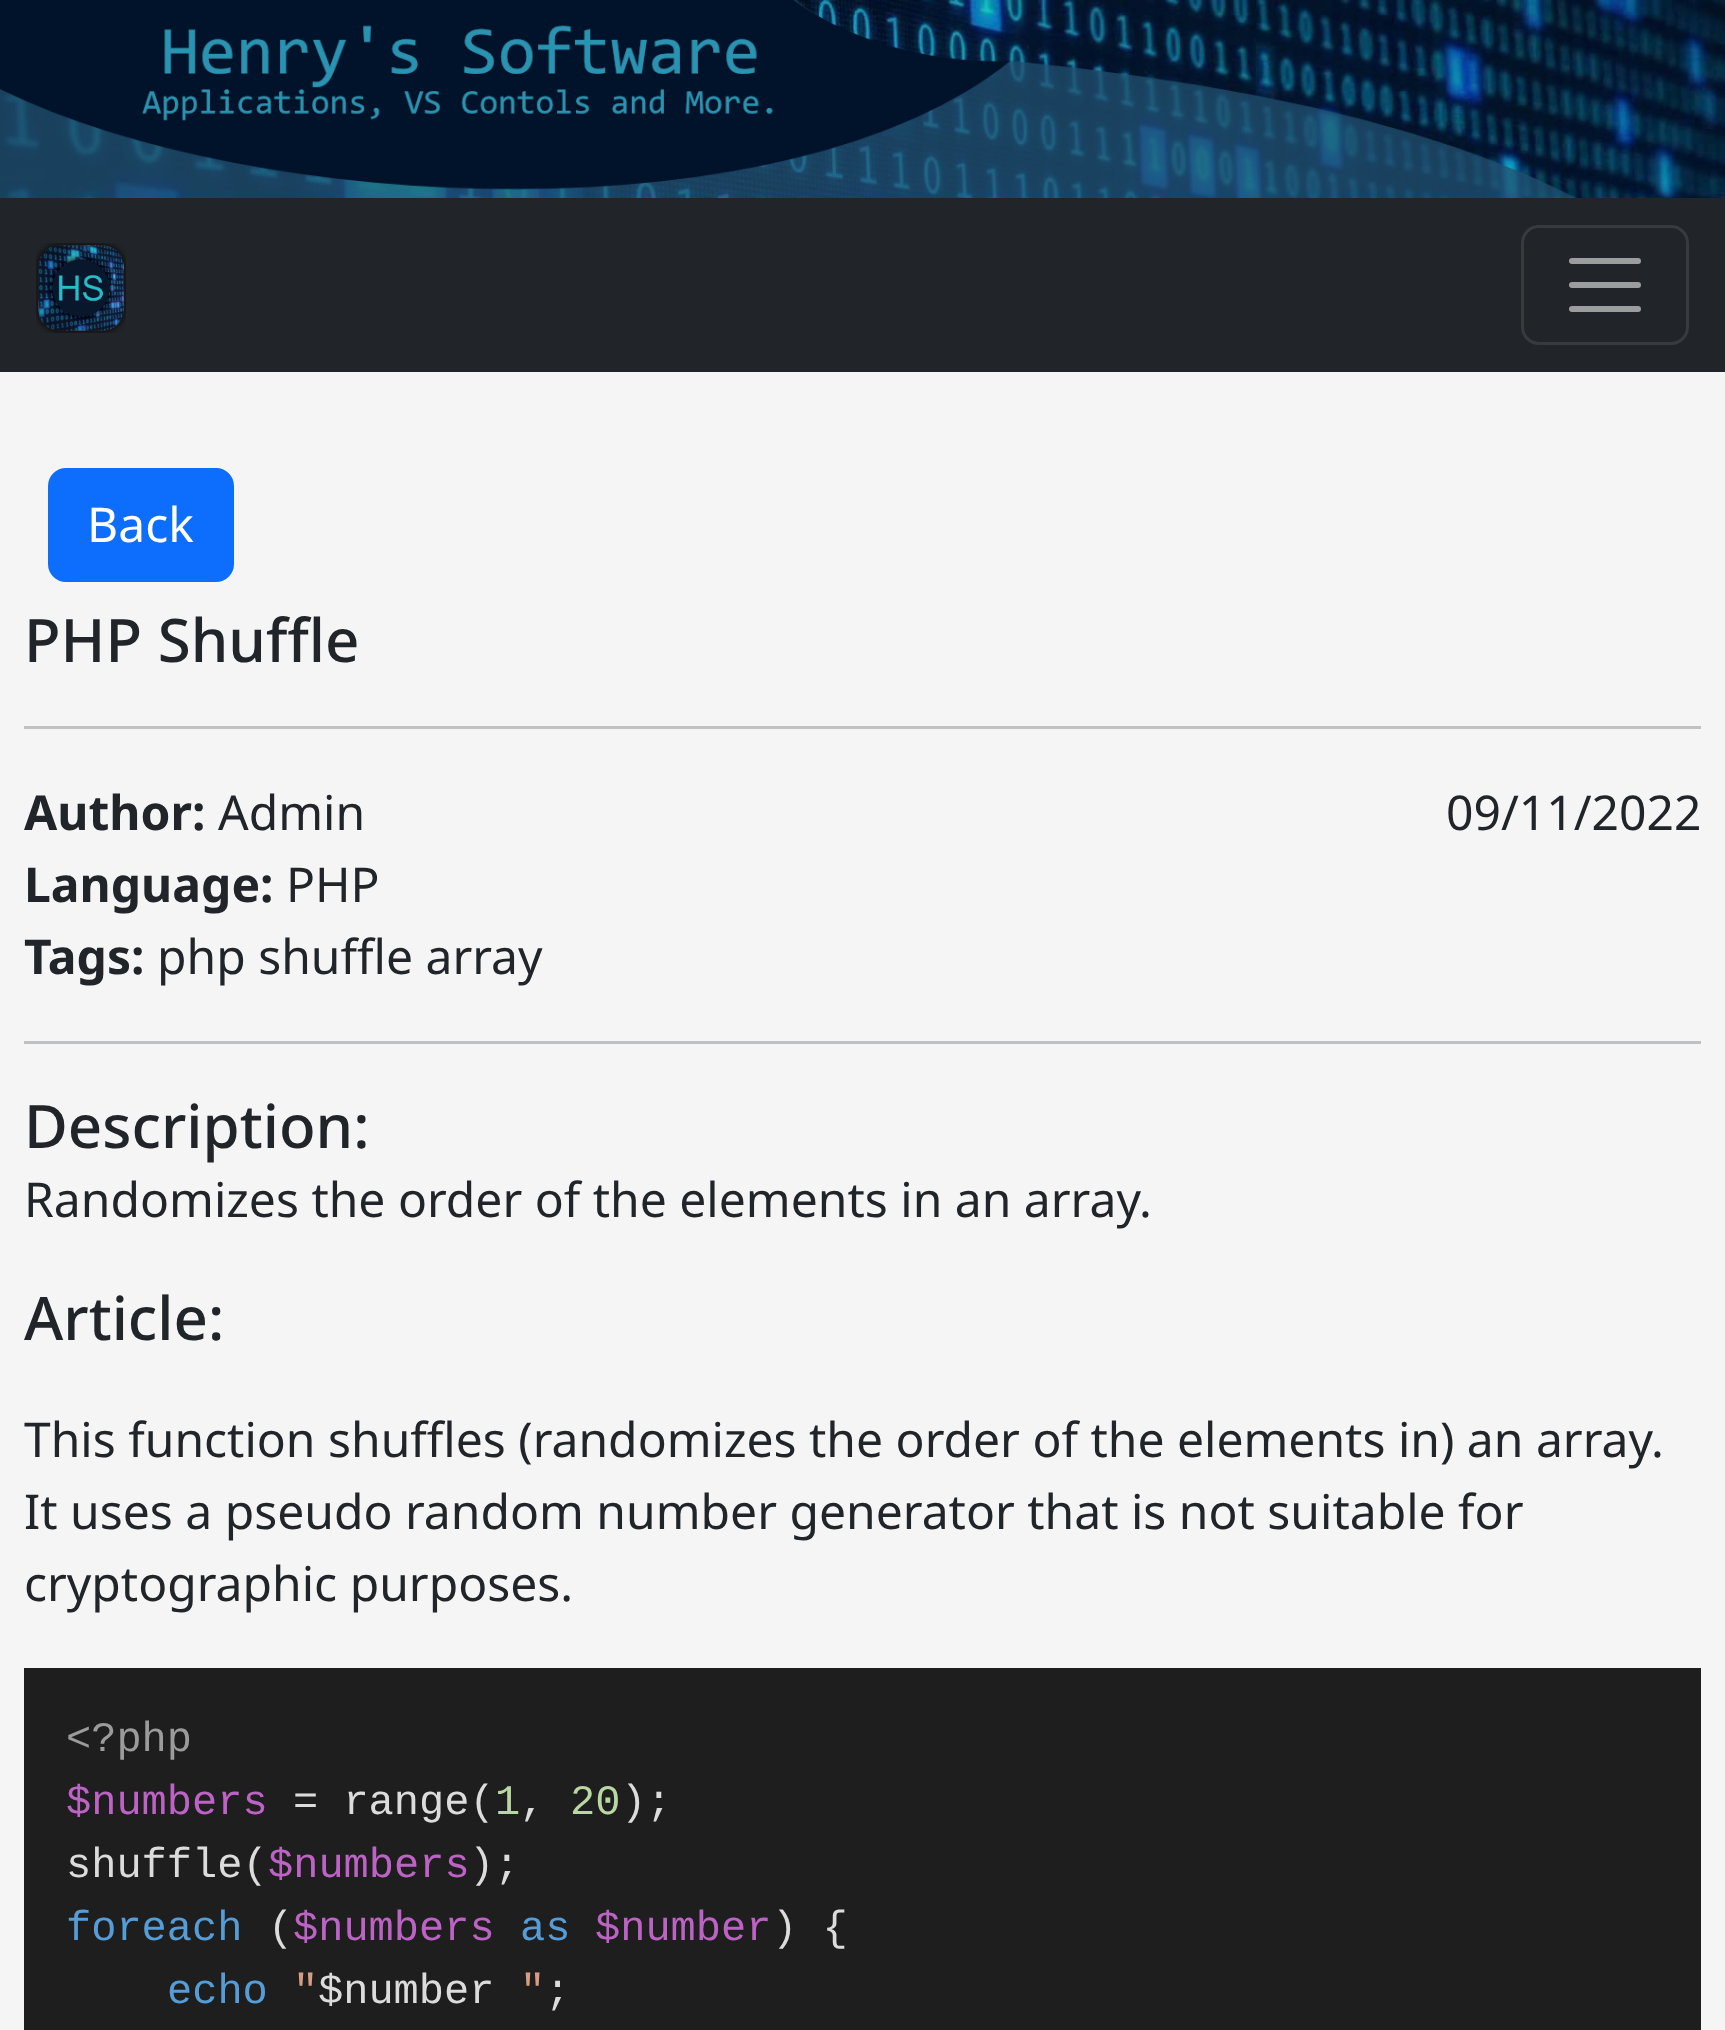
(async () => {
const canvas = document.querySelector("canvas")
canvas.width = 1725
canvas.height = 2030
const c = canvas.getContext("2d")
c.miterLimit = 4
c.fontKerning = "normal"
function T(s,x,y){c.fillText(s,x,y)}
function R(x,y,w,h){c.fillRect(x,y,w,h)}
async function I(src,x,y,w,h){const img=new Image();img.src=src;await img.decode();c.drawImage(img,x,y,w,h)}
let path
c.fillStyle="#f5f5f5"
R(0,0,1725,2030)
await I("1.png",0,0,1725,198)
c.fillStyle="#212529"
R(0,198,1725,174)
await I("2.png",36,243,90,90)
c.beginPath()
c.roundRect(1522.5,226.5,165,117,16.5)
c.strokeStyle="#373b3e"
c.lineWidth=3
c.stroke()
path = new Path2D("M1572 261h66m-66 24h66m-66 24h66")
c.strokeStyle="#9b9d9f"
c.lineWidth=6
c.lineCap="round"
c.stroke(path)
c.fillStyle="#0d6efd"
c.beginPath()
c.roundRect(49.5,469.5,183,111,16.5)
c.fill()
c.strokeStyle="#0d6efd"
c.lineWidth=3
c.stroke()
c.font="48px Noto Sans"
c.fillStyle="#fff"
T("Back",87,542)
c.font="500 60px Noto Sans"
c.fillStyle="#212529"
T("PHP Shuffle",24,662)
c.fillStyle="#c0c1c2"
R(24,726,1677,3)
c.font="bold 48px Noto Sans"
c.fillStyle="#212529"
T("Author:",24,830)
c.font="48px Noto Sans"
T("Admin",218,830)
T("09/11/2022",1446,830)
c.font="bold 48px Noto Sans"
T("Language:",24,902)
c.font="48px Noto Sans"
T("PHP",286,902)
c.font="bold 48px Noto Sans"
T("Tags:",24,974)
c.font="48px Noto Sans"
T("php shuffle array",157,974)
c.fillStyle="#c0c1c2"
R(24,1041,1677,3)
c.font="500 60px Noto Sans"
c.fillStyle="#212529"
T("Description:",24,1148)
c.font="48px Noto Sans"
T("Randomizes the order of the elements in an array.",24,1217)
c.font="500 60px Noto Sans"
T("Article:",24,1340)
c.font="48px Noto Sans"
T("This function shuffles (randomizes the order of the elements in) an array.",24,1457)
T("It uses a pseudo random number generator that is not suitable for",24,1529)
T("cryptographic purposes.",24,1601)
c.fillStyle="#1e1e1e"
R(24,1668,1677,362)
c.font="42px Liberation Mono"
c.fillStyle="#9b9b9b"
T("<?php",66,1751)
c.fillStyle="#bd63c5"
T("$numbers",66,1814)
c.fillStyle="#dcdcdc"
T("= range( ,",293,1814)
c.fillStyle="#b8d7a3"
T("20",570,1814)
c.fillStyle="#dcdcdc"
T(");",621,1814)
c.fillStyle="#b8d7a3"
T("1",495,1814)
c.fillStyle="#dcdcdc"
T("shuffle(",66,1877)
c.fillStyle="#bd63c5"
T("$numbers",268,1877)
c.fillStyle="#dcdcdc"
T(");",469,1877)
c.fillStyle="#569cd6"
T("foreach",66,1940)
c.fillStyle="#dcdcdc"
T("(",268,1940)
c.fillStyle="#bd63c5"
T("$numbers",293,1940)
c.fillStyle="#569cd6"
T("as",520,1940)
c.fillStyle="#bd63c5"
T("$number",595,1940)
c.fillStyle="#dcdcdc"
T(") {",772,1940)
c.fillStyle="#569cd6"
T("echo",167,2003)
c.fillStyle="#d69d85"
T("\"",293,2003)
c.fillStyle="#dcdcdc"
T("$number",318,2003)
c.fillStyle="#d69d85"
T("\"",520,2003)
c.fillStyle="#dcdcdc"
T(";",545,2003)
})()
